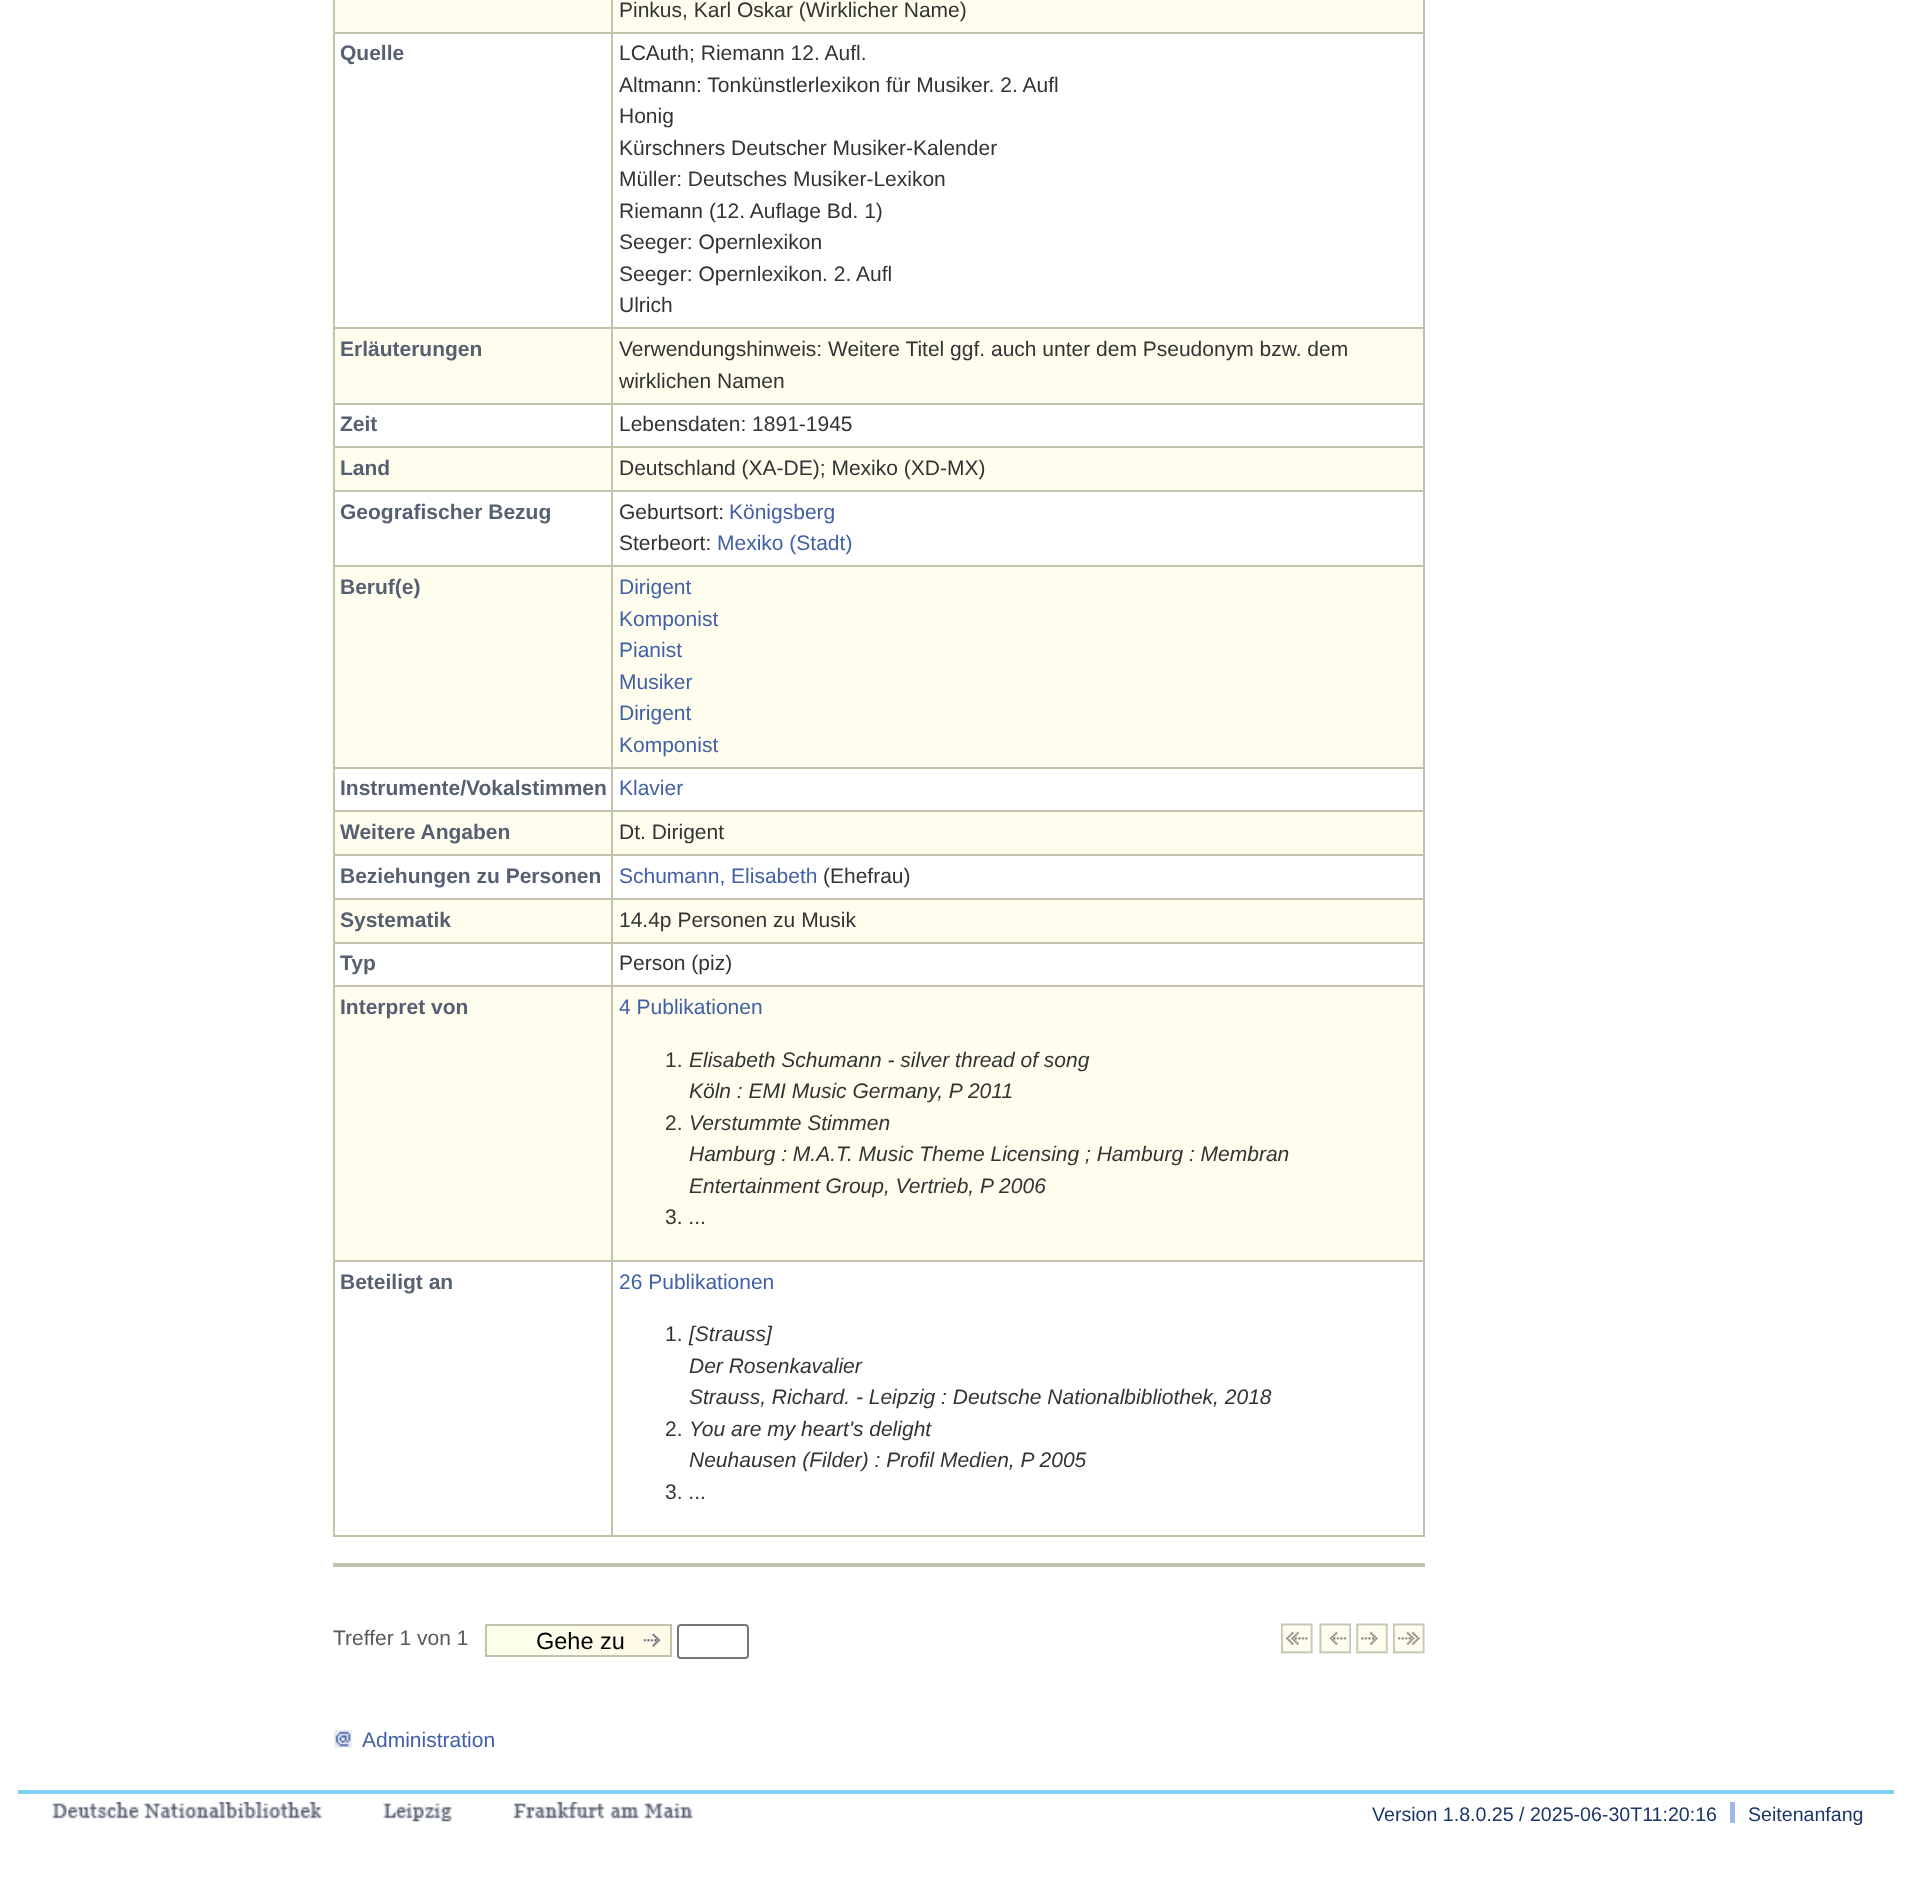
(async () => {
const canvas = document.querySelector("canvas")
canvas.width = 1907
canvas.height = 1880
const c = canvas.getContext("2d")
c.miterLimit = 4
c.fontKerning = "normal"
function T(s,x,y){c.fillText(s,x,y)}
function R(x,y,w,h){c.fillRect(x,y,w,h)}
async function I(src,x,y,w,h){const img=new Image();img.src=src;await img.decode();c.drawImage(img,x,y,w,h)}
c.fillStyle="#fff"
R(0,0,1907,1880)
c.fillStyle="#c1c3ad"
R(1423,0,2,1537)
R(333,1535,1092,2)
R(333,0,2,1537)
c.fillStyle="#fffded"
R(335,0,276,32)
R(613,0,810,32)
c.font="21px Liberation Sans"
c.fillStyle="#333"
T("Pinkus, Karl Oskar (Wirklicher Name)",619,17)
c.fillStyle="#c1c3ad"
R(333,32,1092,2)
c.font="bold 21px Liberation Sans"
c.fillStyle="#576072"
T("Quelle",340,60)
c.font="21px Liberation Sans"
c.fillStyle="#333"
T("LCAuth; Riemann 12. Aufl.",619,60)
T("Altmann: Tonkünstlerlexikon für Musiker. 2. Aufl",619,92)
T("Honig",619,123)
T("Kürschners Deutscher Musiker-Kalender",619,155)
T("Müller: Deutsches Musiker-Lexikon",619,186)
T("Riemann (12. Auflage Bd. 1)",619,218)
T("Seeger: Opernlexikon",619,249)
T("Seeger: Opernlexikon. 2. Aufl",619,281)
T("Ulrich",619,312)
c.fillStyle="#c1c3ad"
R(333,327,1092,2)
c.fillStyle="#fffded"
R(335,329,276,74)
c.font="bold 21px Liberation Sans"
c.fillStyle="#576072"
T("Erläuterungen",340,356)
c.fillStyle="#fffded"
R(613,329,810,74)
c.font="21px Liberation Sans"
c.fillStyle="#333"
T("Verwendungshinweis: Weitere Titel ggf. auch unter dem Pseudonym bzw. dem",619,356)
T("wirklichen Namen",619,388)
c.fillStyle="#c1c3ad"
R(333,403,1092,2)
c.font="bold 21px Liberation Sans"
c.fillStyle="#576072"
T("Zeit",340,431)
c.font="21px Liberation Sans"
c.fillStyle="#333"
T("Lebensdaten: 1891-1945",619,431)
c.fillStyle="#c1c3ad"
R(333,446,1092,2)
c.fillStyle="#fffded"
R(335,448,276,42)
c.font="bold 21px Liberation Sans"
c.fillStyle="#576072"
T("Land",340,475)
c.fillStyle="#fffded"
R(613,448,810,42)
c.font="21px Liberation Sans"
c.fillStyle="#333"
T("Deutschland (XA-DE); Mexiko (XD-MX)",619,475)
c.fillStyle="#c1c3ad"
R(333,490,1092,2)
c.font="bold 21px Liberation Sans"
c.fillStyle="#576072"
T("Geografischer Bezug",340,519)
c.font="21px Liberation Sans"
c.fillStyle="#333"
T("Geburtsort:",619,519)
c.fillStyle="#4160a5"
T("Königsberg",729,519)
c.fillStyle="#333"
T("Sterbeort:",619,550)
c.fillStyle="#4160a5"
T("Mexiko (Stadt)",717,550)
c.fillStyle="#c1c3ad"
R(333,565,1092,2)
c.fillStyle="#fffded"
R(335,567,276,200)
c.font="bold 21px Liberation Sans"
c.fillStyle="#576072"
T("Beruf(e)",340,594)
c.fillStyle="#fffded"
R(613,567,810,200)
c.font="21px Liberation Sans"
c.fillStyle="#4160a5"
T("Dirigent",619,594)
T("Komponist",619,626)
T("Pianist",619,657)
T("Musiker",619,689)
T("Dirigent",619,720)
T("Komponist",619,752)
c.fillStyle="#c1c3ad"
R(333,767,1092,2)
c.font="bold 21px Liberation Sans"
c.fillStyle="#576072"
T("Instrumente/Vokalstimmen",340,795)
c.font="21px Liberation Sans"
c.fillStyle="#4160a5"
T("Klavier",619,795)
c.fillStyle="#c1c3ad"
R(333,810,1092,2)
c.fillStyle="#fffded"
R(335,812,276,42)
c.font="bold 21px Liberation Sans"
c.fillStyle="#576072"
T("Weitere Angaben",340,839)
c.fillStyle="#fffded"
R(613,812,810,42)
c.font="21px Liberation Sans"
c.fillStyle="#333"
T("Dt. Dirigent",619,839)
c.fillStyle="#c1c3ad"
R(333,854,1092,2)
c.font="bold 21px Liberation Sans"
c.fillStyle="#576072"
T("Beziehungen zu Personen",340,883)
c.font="21px Liberation Sans"
c.fillStyle="#4160a5"
T("Schumann, Elisabeth",619,883)
c.fillStyle="#333"
T("(Ehefrau)",823,883)
c.fillStyle="#c1c3ad"
R(333,898,1092,2)
c.fillStyle="#fffded"
R(335,900,276,42)
c.font="bold 21px Liberation Sans"
c.fillStyle="#576072"
T("Systematik",340,927)
c.fillStyle="#fffded"
R(613,900,810,42)
c.font="21px Liberation Sans"
c.fillStyle="#333"
T("14.4p Personen zu Musik",619,927)
c.fillStyle="#c1c3ad"
R(333,942,1092,2)
c.font="bold 21px Liberation Sans"
c.fillStyle="#576072"
T("Typ",340,970)
c.font="21px Liberation Sans"
c.fillStyle="#333"
T("Person (piz)",619,970)
c.fillStyle="#c1c3ad"
R(333,985,1092,2)
c.fillStyle="#fffded"
R(335,987,276,273)
c.font="bold 21px Liberation Sans"
c.fillStyle="#576072"
T("Interpret von",340,1014)
c.fillStyle="#fffded"
R(613,987,810,273)
c.font="21px Liberation Sans"
c.fillStyle="#4160a5"
T("4 Publikationen",619,1014)
c.fillStyle="#333"
T("1.",665,1067)
c.font="italic 21px Liberation Sans"
T("Elisabeth Schumann - silver thread of song",689,1067)
T("Köln : EMI Music Germany, P 2011",689,1098)
c.font="21px Liberation Sans"
T("2.",665,1130)
c.font="italic 21px Liberation Sans"
T("Verstummte Stimmen",689,1130)
T("Hamburg : M.A.T. Music Theme Licensing ; Hamburg : Membran",689,1161)
T("Entertainment Group, Vertrieb, P 2006",689,1193)
c.font="21px Liberation Sans"
T("3. ...",665,1224)
c.fillStyle="#c1c3ad"
R(333,1260,1092,2)
c.font="bold 21px Liberation Sans"
c.fillStyle="#576072"
T("Beteiligt an",340,1289)
c.fillStyle="#c1c3ad"
R(611,0,2,1537)
c.font="21px Liberation Sans"
c.fillStyle="#4160a5"
T("26 Publikationen",619,1289)
c.fillStyle="#333"
T("1.",665,1341)
c.font="italic 21px Liberation Sans"
T("[Strauss]",689,1341)
T("Der Rosenkavalier",689,1373)
T("Strauss, Richard. - Leipzig : Deutsche Nationalbibliothek, 2018",689,1404)
c.font="21px Liberation Sans"
T("2.",665,1436)
c.font="italic 21px Liberation Sans"
T("You are my heart's delight",689,1436)
T("Neuhausen (Filder) : Profil Medien, P 2005",689,1467)
c.font="21px Liberation Sans"
T("3. ...",665,1499)
c.fillStyle="#c1c3ad"
R(333,1563,1092,4)
c.fillStyle="#5c575b"
T("Treffer 1 von 1",333,1645)
c.fillStyle="#fefeed"
R(487,1626,89,29)
await I("1.png",576,1626,94,29)
c.strokeStyle="#c1c3ae"
c.lineWidth=2
c.strokeRect(486,1625,185,31)
c.font="23.5px Liberation Sans"
c.fillStyle="#000"
T("Gehe zu",536,1649)
c.beginPath()
c.roundRect(678,1625,70,33,3)
c.strokeStyle="#767676"
c.stroke()
await I("2.png",1281,1623,32,31)
await I("3.png",1319,1623,32,31)
await I("4.png",1356,1623,32,31)
await I("5.png",1393,1623,32,31)
await I("6.png",334,1730,18,18)
c.font="21px Liberation Sans"
c.fillStyle="#4160a5"
T("Administration",362,1747)
c.fillStyle="#80d0f4"
R(18,1790,1876,4)
await I("7.png",52,1802,642,20)
c.font="19.6px Liberation Sans"
c.fillStyle="#1c3667"
T("Version 1.8.0.25 / 2025-06-30T11:20:16",1372,1821)
T("Seitenanfang",1748,1821)
c.fillStyle="#9fb6e8"
R(1730,1802,5,21)
})()
